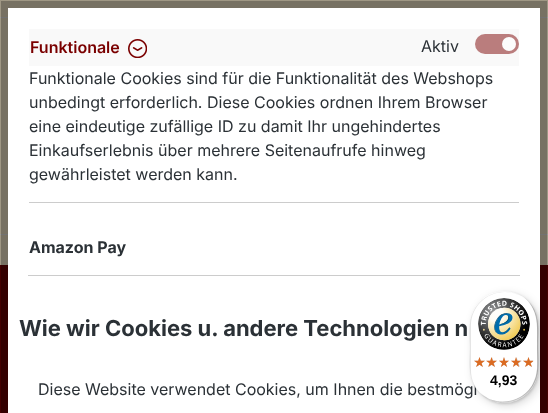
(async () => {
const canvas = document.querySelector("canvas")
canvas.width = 548
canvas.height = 413
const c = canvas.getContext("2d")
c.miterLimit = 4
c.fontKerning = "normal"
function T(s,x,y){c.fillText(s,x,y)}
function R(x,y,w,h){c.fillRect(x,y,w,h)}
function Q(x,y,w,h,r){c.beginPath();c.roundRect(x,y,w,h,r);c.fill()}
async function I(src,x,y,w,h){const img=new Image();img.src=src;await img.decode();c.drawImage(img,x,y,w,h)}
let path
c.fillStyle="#9f9784"
R(0,0,548,413)
c.fillStyle="#999"
R(0,17,548,1)
R(0,234,548,1)
c.fillStyle="#400"
R(0,265,548,148)
c.strokeStyle="#00000040"
c.lineWidth=7
c.strokeRect(4.5,4.5,539,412)
c.fillStyle="#fff"
R(8,8,532,405)
c.fillStyle="#ccc"
R(28,275,492,1)
c.fillStyle="#f9f9f9"
R(29,29,490,37)
c.font="600 16px Inter"
c.fillStyle="#7a0000"
T("Funktionale",30,53)
await I("1.png",128,39,19,19)
c.font="16px Inter"
c.fillStyle="#2b3136"
T("Aktiv",421,52)
c.fillStyle="#ba7d7d"
Q(475,34,44,20,10)
c.fillStyle="#fcfcfc"
c.beginPath()
c.arc(509,44,7,0,7)
c.fill()
c.fillStyle="#ccc"
R(29,202,490,1)
c.fillStyle="#2b3136"
T("Funktionale Cookies sind für die Funktionalität des Webshops",29,84)
T("unbedingt erforderlich. Diese Cookies ordnen Ihrem Browser",29,108)
T("eine eindeutige zufällige ID zu damit Ihr ungehindertes",29,132)
T("Einkaufserlebnis über mehrere Seitenaufrufe hinweg",29,156)
T("gewährleistet werden kann.",29,180)
c.font="bold 16px Inter"
T("Amazon Pay",29,253)
c.font="bold 22px Inter"
T("Wie wir Cookies u. andere Technologien n",19,336)
c.font="16px Inter"
T("Diese Website verwendet Cookies, um Ihnen die bestmögl",38,395)
c.fillStyle="#00000026"
c.filter="blur(4px)"
c.beginPath()
c.roundRect(473,294,68,112,34)
c.fill()
c.filter="none"
c.filter="blur(1px)"
c.beginPath()
c.roundRect(471,292,68,112,34)
c.fill()
c.filter="none"
c.fillStyle="#fff"
Q(470,291,68,112,34)
c.fillStyle="#0000001a"
path = new Path2D("M505 292c8 0 16 3 22 8c-17-15-45-9-54 12c-5 10-3 24-3 35c0 15-3 32 9 45c-5-6-8-14-8-22v-44c0-19 15-34 34-34z")
c.fill(path)
c.fillStyle="#00000033"
path = new Path2D("M481 394c17 15 45 9 54-12c5-10 3-24 3-35c0-15 3-32-9-45c10 13 8 29 8 44c0 11 2 25-3 35c-8 21-36 27-53 13z")
c.fill(path)
c.fillStyle="#32323233"
path = new Path2D("M477 390c7 8 16 13 27 13c19 0 34-15 34-34v-44c0-11-5-20-13-27c7 7 12 16 12 26v44c0 19-15 34-34 34c-10 0-19-5-26-12z")
c.fill(path)
c.fillStyle="#ffffff4d"
path = new Path2D("M470 368c0 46 68 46 68 0c0 19-16 34-34 34c-19 0-34-15-34-34z")
c.fill(path)
await I("2.png",478,298,52,52)
await I("3.png",474,357,11,10)
await I("4.png",487,357,10,10)
await I("5.png",499,357,10,10)
await I("6.png",511,357,11,10)
await I("6.png",523,357,11,10)
await I("7.png",474,357,11,10)
await I("8.png",486,357,11,10)
await I("9.png",499,357,10,10)
await I("10.png",511,357,10,10)
await I("11.png",523,357,10,10)
c.font="bold 14px Liberation Sans"
c.fillStyle="#000"
T("4,93",490,385)
})()
